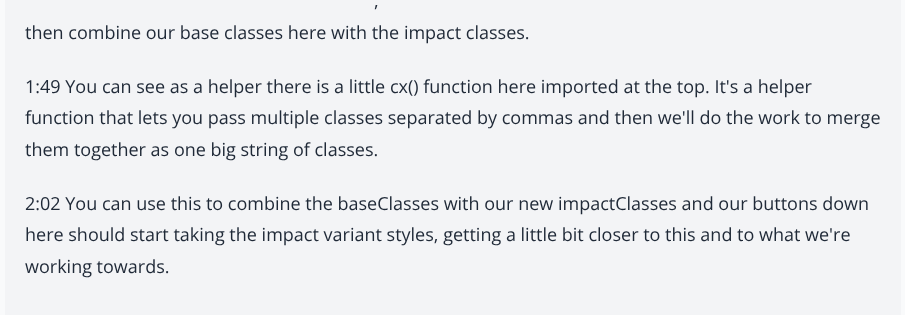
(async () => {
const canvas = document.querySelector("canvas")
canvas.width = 905
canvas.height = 315
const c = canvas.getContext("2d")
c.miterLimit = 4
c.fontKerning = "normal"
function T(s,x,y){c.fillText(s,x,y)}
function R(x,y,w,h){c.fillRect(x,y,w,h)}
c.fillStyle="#f9fafb"
R(0,0,905,315)
c.fillStyle="#f3f4f6"
R(5,0,896,315)
c.font="18px Open Sans"
c.fillStyle="#1f2937"
T(",",374,7)
T("then combine our base classes here with the impact classes.",25,39)
T("1:49 You can see as a helper there is a little cx() function here imported at the top. It's a helper",25,93)
T("function that lets you pass multiple classes separated by commas and then we'll do the work to merge",25,124)
T("them together as one big string of classes.",25,156)
T("2:02 You can use this to combine the baseClasses with our new impactClasses and our buttons down",25,210)
T("here should start taking the impact variant styles, getting a little bit closer to this and to what we're",25,241)
T("working towards.",25,273)
})()
